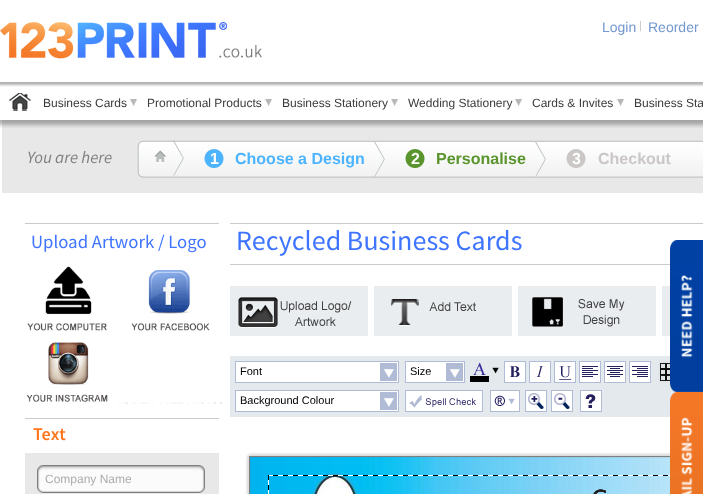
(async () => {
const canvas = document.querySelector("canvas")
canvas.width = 703
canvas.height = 494
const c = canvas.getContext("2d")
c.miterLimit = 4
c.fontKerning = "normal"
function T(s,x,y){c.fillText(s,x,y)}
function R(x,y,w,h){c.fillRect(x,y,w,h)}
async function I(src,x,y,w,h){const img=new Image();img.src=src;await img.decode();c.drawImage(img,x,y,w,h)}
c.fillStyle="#fff"
R(0,0,703,494)
await I("1.png",0,82,703,5)
await I("2.png",0,22,262,37)
c.font="14px Liberation Sans"
c.fillStyle="#7397cf"
T("Login",602,32)
c.font="11px Liberation Sans"
c.fillStyle="#cbc7c7"
T("|",639,29)
c.font="14px Liberation Sans"
c.fillStyle="#7397cf"
T("Reorder",648,32)
await I("3.png",0,120,2,8)
await I("4.png",9,93,22,18)
await I("5.png",129,98,8,9)
c.font="12px Liberation Sans"
c.fillStyle="#3a3c3b"
T("Business Cards",43,107)
await I("5.png",264,98,8,9)
T("Promotional Products",147,107)
await I("5.png",390,98,8,9)
T("Business Stationery",282,107)
await I("5.png",514,98,8,9)
T("Wedding Stationery",408,107)
await I("5.png",616,98,8,9)
T("Cards & Invites",532,107)
T("Business Sta",634,107)
c.fillStyle="#e8e8e8"
R(2,128,701,65)
await I("6.png",2,120,701,8)
c.font="italic 17px Source Sans Pro"
c.fillStyle="#808080"
T("You are here",27,163)
await I("7.png",137,140,566,38)
await I("8.png",173,140,11,36)
await I("9.png",154,150,12,13)
await I("10.png",374,142,11,35)
await I("11.png",204,149,20,19)
c.font="bold 16px Liberation Sans"
c.fillStyle="#4cb4ff"
T("Choose a Design",235,164)
c.fillStyle="#fff"
T("1",210,164)
await I("10.png",535,142,11,35)
await I("12.png",405,149,20,19)
T("2",411,164)
c.fillStyle="#59942c"
T("Personalise",436,164)
await I("13.png",566,149,20,19)
c.fillStyle="#fff"
T("3",572,164)
c.fillStyle="#cbc7c7"
T("Checkout",598,164)
c.fillStyle="#cbcbcb"
R(25,223,194,1)
c.font="18.75px Source Sans Pro"
c.fillStyle="#3e74ff"
T("Upload Artwork / Logo",31,248)
await I("14.png",26,266,197,138)
c.fillStyle="#cbcbcb"
R(230,223,473,1)
R(230,264,440,1)
c.font="28px Source Sans Pro"
c.fillStyle="#3e74ff"
T("Recycled Business Cards",236,250)
await I("15.png",230,286,138,50)
await I("16.png",374,286,138,50)
await I("17.png",518,286,138,50)
await I("18.png",662,286,8,50)
c.fillStyle="#e3e9ec"
R(230,356,473,61)
await I("19.png",235,361,164,22)
c.font="11px Liberation Sans"
c.fillStyle="#000"
T("Font",240,375)
await I("20.png",405,361,60,22)
T("Size",410,375)
await I("21.png",473,362,26,13)
R(470,376,19,6)
await I("22.png",504,361,22,22)
await I("23.png",529,361,22,22)
await I("24.png",554,361,22,22)
await I("25.png",579,361,22,22)
await I("26.png",604,361,22,22)
await I("27.png",629,361,22,22)
await I("28.png",658,361,13,22)
await I("19.png",235,390,164,22)
T("Background Colour",240,404)
await I("29.png",405,390,78,22)
await I("30.png",490,390,30,22)
await I("31.png",525,390,22,22)
await I("32.png",551,390,22,22)
await I("33.png",580,390,22,22)
await I("34.png",250,457,420,37)
c.fillStyle="#7f7f7f"
c.filter="blur(1.5px)"
c.beginPath()
c.rect(249,455,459,1)
c.fill()
c.filter="none"
R(249,456,421,1)
c.filter="blur(1.5px)"
c.beginPath()
c.rect(248,456,1,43)
c.fill()
c.filter="none"
R(249,456,1,38)
await I("35.png",268,475,1,19)
await I("36.png",269,475,401,1)
await I("37.png",593,489,13,5)
c.fillStyle="#cbcbcb"
R(25,418,194,1)
c.font="600 18px Source Sans Pro"
c.fillStyle="#ff771c"
T("Text",33,440)
c.fillStyle="#e8e8e8"
R(25,453,194,41)
await I("38.png",37,465,168,28)
c.font="12px Liberation Sans"
c.fillStyle="#acacac"
T("Company Name",45,483)
await I("39.png",670,240,33,152)
await I("40.png",670,392,33,102)
})()
